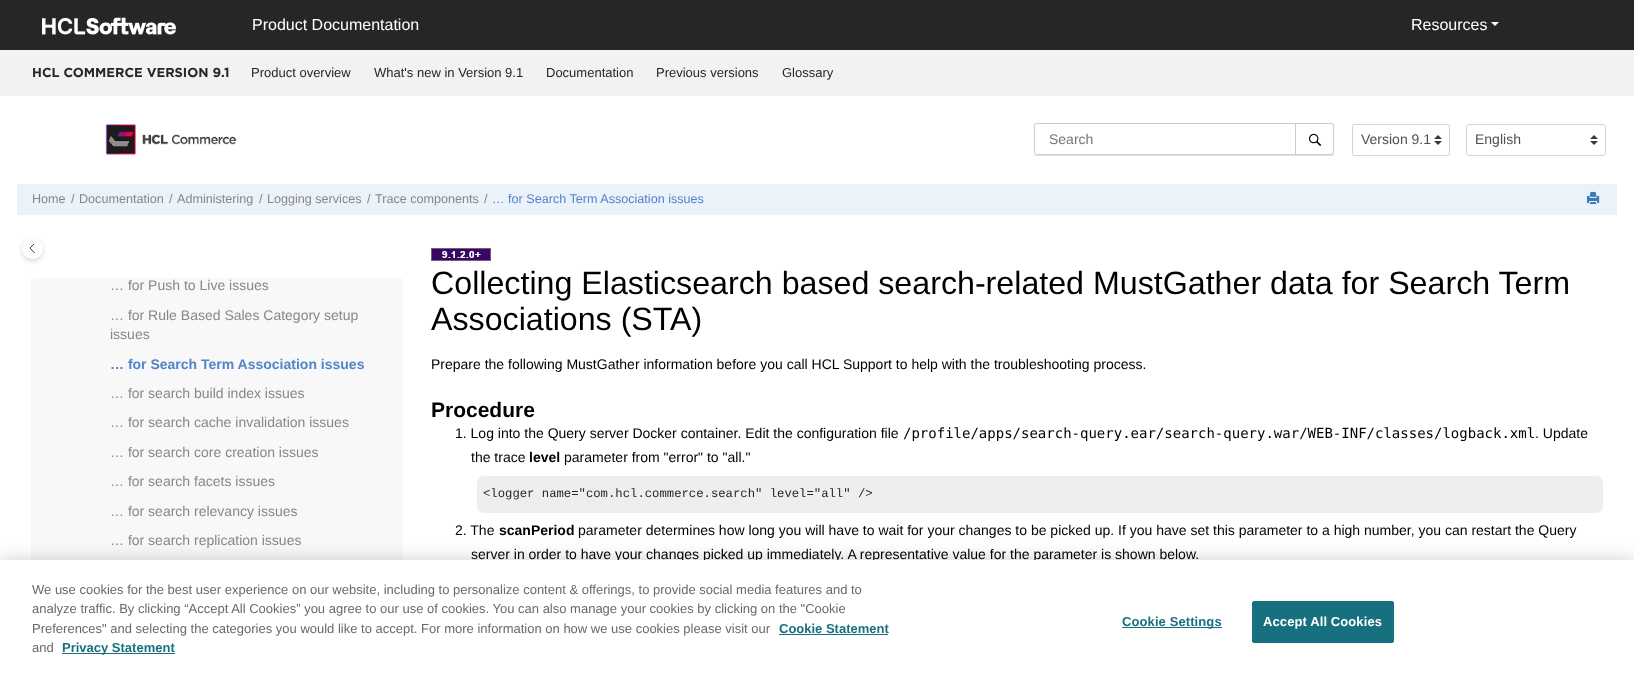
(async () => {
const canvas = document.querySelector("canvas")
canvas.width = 1634
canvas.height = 681
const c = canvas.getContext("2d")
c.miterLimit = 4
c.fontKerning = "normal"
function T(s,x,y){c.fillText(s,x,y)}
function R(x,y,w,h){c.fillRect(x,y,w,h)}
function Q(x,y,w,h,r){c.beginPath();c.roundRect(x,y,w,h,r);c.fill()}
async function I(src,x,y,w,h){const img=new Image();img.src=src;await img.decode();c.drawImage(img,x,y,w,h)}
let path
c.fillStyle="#fff"
R(0,0,1634,681)
c.fillStyle="#262626"
R(0,0,1634,50)
await I("1.png",42,17,134,18)
c.font="16px Liberation Sans"
c.fillStyle="#fff"
T("Product Documentation",252,30)
T("Resources",1411,30)
path = new Path2D("M1491 22h8l-4 4z")
c.fill(path)
c.fillStyle="#f2f2f2"
R(0,50,1634,46)
c.font="bold 13px Gotham"
c.fillStyle="#262626"
T("HCL COMMERCE VERSION 9.1",32,77)
c.font="13px Liberation Sans"
T("Product overview",251,77)
T("What's new in Version 9.1",374,77)
T("Documentation",546,77)
T("Previous versions",656,77)
T("Glossary",782,77)
await I("2.png",105,124,132,31)
c.fillStyle="#dee5e7"
R(1034,155,300,1)
c.beginPath()
c.roundRect(1034.5,123.5,299,31,2.5)
c.strokeStyle="#ccc"
c.stroke()
c.font="14px Liberation Sans"
c.fillStyle="#757575"
T("Search",1049,144)
c.fillStyle="#fff"
c.beginPath()
c.roundRect(1295.5,123.5,38,31,[0,2.5,2.5,0])
c.fill()
c.stroke()
await I("3.png",1308,133,14,13)
await I("4.png",1434,135,8,10)
c.beginPath()
c.roundRect(1352.5,124.5,97,31,2)
c.strokeStyle="#ced4da"
c.stroke()
c.fillStyle="#495057"
T("Version 9.1",1361,144)
await I("4.png",1590,135,8,10)
c.beginPath()
c.roundRect(1466.5,124.5,139,31,2)
c.stroke()
T("English",1475,144)
c.fillStyle="#ecf2f9"
R(17,184,1600,31)
c.font="12.6px Liberation Sans"
c.fillStyle="#878787"
T("Home",32,203)
T("/",71,203)
T("Documentation",79,203)
T("/",169,203)
T("Administering",177,203)
T("/",259,203)
T("Logging services",267,203)
T("/",367,203)
T("Trace components",375,203)
T("/",484,203)
c.fillStyle="#5185cb"
T("… for Search Term Association issues",492,203)
await I("5.png",1587,191,13,13)
c.fillStyle="#f8f8f8"
Q(31,278,372,329,3)
c.font="14px Liberation Sans"
c.fillStyle="#878787"
T("… for Push to Live issues",110,290)
T("… for Rule Based Sales Category setup",110,320)
T("issues",110,339)
c.font="bold 14px Liberation Sans"
c.fillStyle="#5185cb"
T("… for Search Term Association issues",110,369)
c.font="14px Liberation Sans"
c.fillStyle="#878787"
T("… for search build index issues",110,398)
T("… for search cache invalidation issues",110,427)
T("… for search core creation issues",110,457)
T("… for search facets issues",110,486)
T("… for search relevancy issues",110,516)
T("… for search replication issues",110,545)
c.fillStyle="#00000029"
c.filter="blur(2.5px)"
c.beginPath()
c.roundRect(22,240,21,21,10.5)
c.fill()
c.filter="none"
c.fillStyle="#fff"
c.beginPath()
c.arc(32.5,248.5,10.5,0,7)
c.fill()
c.save()
c.beginPath()
c.rect(29,244,7,9)
c.clip()
path = new Path2D("M35.5 242.5l5.5 5.5l-5.5 6l-5.5-6z")
c.strokeStyle="#343a40"
c.stroke(path)
c.restore()
await I("6.png",431,248,60,13)
c.font="32.2px Liberation Sans"
c.fillStyle="#000"
T("Collecting Elasticsearch based search-related MustGather data for Search Term",431,294)
T("Associations (STA)",431,330)
c.font="14px Liberation Sans"
T("Prepare the following MustGather information before you call HCL Support to help with the troubleshooting process.",431,369)
c.font="bold 21px Liberation Sans"
T("Procedure",431,417)
c.font="14px Liberation Sans"
T("1. Log into the Query server Docker container. Edit the configuration file",455,438)
c.font="14px DejaVu Sans Mono"
T("/profile/apps/search-query.ear/search-query.war/WEB-INF/classes/logback.xml",903,438)
c.font="14px Liberation Sans"
T(". Update",1535,438)
T("the trace",471,462)
c.font="bold 14px Liberation Sans"
T("level",529,462)
c.font="14px Liberation Sans"
T("parameter from \"error\" to \"all.\"",564,462)
c.fillStyle="#eee"
Q(477,476,1126,37,7)
c.font="12.25px Liberation Mono"
c.fillStyle="#262626"
T("<logger name=\"com.hcl.commerce.search\" level=\"all\" />",483,497)
c.font="14px Liberation Sans"
c.fillStyle="#000"
T("2. The",455,535)
c.font="bold 14px Liberation Sans"
T("scanPeriod",499,535)
c.font="14px Liberation Sans"
T("parameter determines how long you will have to wait for your changes to be picked up. If you have set this parameter to a high number, you can restart the Query",578,535)
T("server in order to have your changes picked up immediately. A representative value for the parameter is shown below.",471,559)
c.fillStyle="#00000033"
c.filter="blur(9px)"
c.beginPath()
c.rect(0,560,1634,121)
c.fill()
c.filter="none"
c.fillStyle="#fff"
R(0,560,1634,121)
c.font="13px Liberation Sans"
c.fillStyle="#696969"
T("We use cookies for the best user experience on our website, including to personalize content & offerings, to provide social media features and to",32,594)
T("analyze traffic. By clicking “Accept All Cookies” you agree to our use of cookies. You can also manage your cookies by clicking on the \"Cookie",32,613)
T("Preferences\" and selecting the categories you would like to accept. For more information on how we use cookies please visit our",32,633)
c.font="bold 13px Liberation Sans"
c.fillStyle="#17707f"
T("Cookie Statement",779,633)
R(779,634,109,1)
c.font="13px Liberation Sans"
c.fillStyle="#696969"
T("and",32,652)
c.fillStyle="#17707f"
R(62,653,113,1)
c.font="bold 13px Liberation Sans"
T("Privacy Statement",62,652)
R(1122,627,100,1)
c.letterSpacing="0.1px"
T("Cookie Settings",1122,626)
c.beginPath()
c.roundRect(1252.5,601.5,141,41,1.5)
c.fill()
c.strokeStyle="#17707f"
c.stroke()
c.fillStyle="#fff"
T("Accept All Cookies",1263,626)
})()
